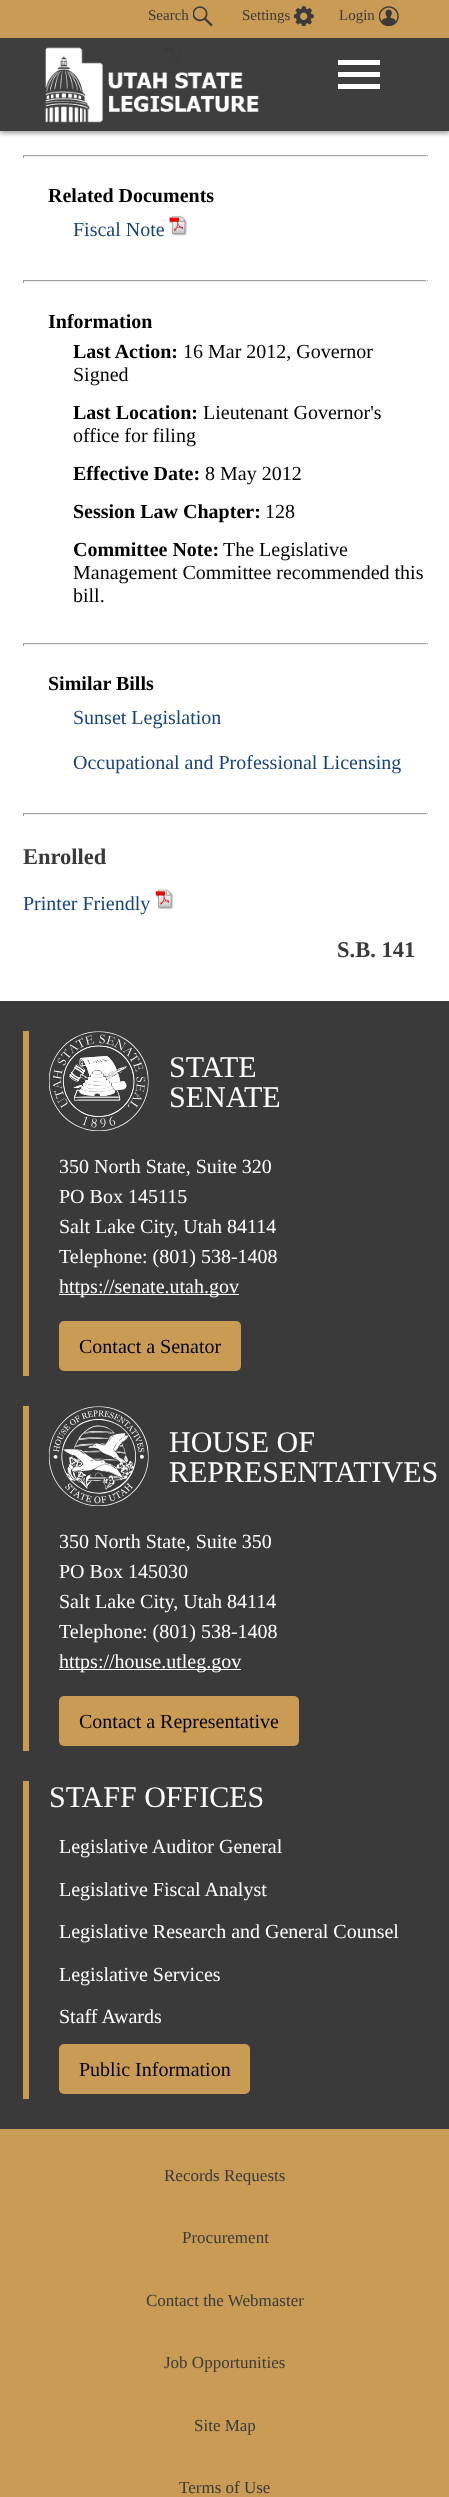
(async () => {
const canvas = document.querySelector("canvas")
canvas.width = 449
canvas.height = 2497
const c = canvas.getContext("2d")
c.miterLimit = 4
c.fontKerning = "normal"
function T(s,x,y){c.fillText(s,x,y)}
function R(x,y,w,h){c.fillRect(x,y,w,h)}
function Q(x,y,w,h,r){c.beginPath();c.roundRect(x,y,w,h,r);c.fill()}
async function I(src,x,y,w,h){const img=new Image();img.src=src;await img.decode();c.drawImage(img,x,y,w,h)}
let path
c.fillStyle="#fff"
R(0,0,449,2497)
c.fillStyle="#3e3e3e"
R(0,38,449,93)
await I("5.png",164,45,18,21)
await I("6.png",147,90,18,21)
c.save()
c.beginPath()
c.rect(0,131,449,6)
c.clip()
c.fillStyle="#00000066"
c.filter="blur(2.5px)"
c.beginPath()
c.rect(0,1,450,132)
c.fill()
c.filter="none"
c.restore()
c.fillStyle="#ca9b54"
R(0,0,449,38)
c.font="15px Liberation Serif"
c.fillStyle="#3a3a3a"
T("Search",148,20)
await I("1.png",193,6,20,20)
T("Settings",242,20)
await I("2.png",294,6,20,20)
T("Login",339,20)
await I("3.png",379,6,20,20)
await I("4.png",45,47,214,76)
c.fillStyle="#fff"
path = new Path2D("M338 72h42v5h-42zm0-12h42v5h-42zm0 24h42v5h-42z")
c.fill(path)
c.fillStyle="#9f9f9f"
R(23,155,405,1)
c.fillStyle="#eee"
R(426,155,1,3)
R(23,156,405,1)
c.fillStyle="#9f9f9f"
R(23,155,1,3)
c.font="bold 20px Liberation Serif"
c.fillStyle="#000"
T("Related Documents",48,202)
c.font="20px Liberation Serif"
c.fillStyle="#184477"
T("Fiscal Note",73,236)
await I("7.png",169,215,18,21)
c.fillStyle="#9f9f9f"
R(23,280,405,1)
c.fillStyle="#eee"
R(426,280,1,3)
R(23,281,405,1)
c.fillStyle="#9f9f9f"
R(23,280,1,3)
c.font="bold 20px Liberation Serif"
c.fillStyle="#000"
T("Information",48,328)
T("Last Action:",73,358)
c.font="20px Liberation Serif"
T("16 Mar 2012, Governor",183,358)
T("Signed",73,381)
c.font="bold 20px Liberation Serif"
T("Last Location:",73,419)
c.font="20px Liberation Serif"
T("Lieutenant Governor's",203,419)
T("office for filing",73,442)
c.font="bold 20px Liberation Serif"
T("Effective Date:",73,480)
c.font="20px Liberation Serif"
T("8 May 2012",205,480)
c.font="bold 20px Liberation Serif"
T("Session Law Chapter:",73,518)
c.font="20px Liberation Serif"
T("128",265,518)
c.font="bold 20px Liberation Serif"
T("Committee Note:",73,556)
c.font="20px Liberation Serif"
T("The Legislative",223,556)
T("Management Committee recommended this",73,579)
T("bill.",73,602)
c.fillStyle="#9f9f9f"
R(23,643,405,1)
c.fillStyle="#eee"
R(426,643,1,3)
R(23,644,405,1)
c.fillStyle="#9f9f9f"
R(23,643,1,3)
c.font="bold 20px Liberation Serif"
c.fillStyle="#000"
T("Similar Bills",48,690)
c.font="20px Liberation Serif"
c.fillStyle="#184477"
T("Sunset Legislation",73,724)
T("Occupational and Professional Licensing",73,769)
c.fillStyle="#9f9f9f"
R(23,813,405,1)
c.fillStyle="#eee"
R(426,813,1,3)
R(23,814,405,1)
c.fillStyle="#9f9f9f"
R(23,813,1,3)
c.font="bold 22.5px Liberation Serif"
c.fillStyle="#3a3a3a"
T("Enrolled",23,864)
c.font="20px Liberation Serif"
c.fillStyle="#184477"
T("Printer Friendly",23,910)
await I("8.png",155,889,18,21)
c.font="bold 22.5px Liberation Serif"
c.fillStyle="#3a3a3a"
T("S.B. 141",337,957)
R(0,1001,449,1128)
c.fillStyle="#ca9b54"
R(23,1031,6,345)
await I("9.png",49,1031,100,100)
c.font="30px Liberation Serif"
c.fillStyle="#fff"
T("STATE",169,1077)
T("SENATE",169,1107)
c.font="20px Liberation Serif"
T("350 North State, Suite 320",59,1173)
T("PO Box 145115",59,1203)
T("Salt Lake City, Utah 84114",59,1233)
T("Telephone: (801) 538-1408",59,1263)
R(59,1294,180,1)
T("https://senate.utah.gov",59,1293)
c.fillStyle="#ca9b54"
Q(59,1321,182,50,5)
c.fillStyle="#000"
T("Contact a Senator",79,1353)
c.fillStyle="#ca9b54"
R(23,1406,6,345)
await I("10.png",49,1406,100,100)
c.font="30px Liberation Serif"
c.fillStyle="#fff"
T("HOUSE OF",169,1452)
T("REPRESENTATIVES",169,1482)
c.font="20px Liberation Serif"
T("350 North State, Suite 350",59,1548)
T("PO Box 145030",59,1578)
T("Salt Lake City, Utah 84114",59,1608)
T("Telephone: (801) 538-1408",59,1638)
R(59,1669,182,1)
T("https://house.utleg.gov",59,1668)
c.fillStyle="#ca9b54"
Q(59,1696,240,50,5)
c.fillStyle="#000"
T("Contact a Representative",79,1728)
c.fillStyle="#ca9b54"
R(23,1781,6,318)
c.font="30px Liberation Serif"
c.fillStyle="#fff"
T("STAFF OFFICES",49,1807)
c.font="20px Liberation Serif"
T("Legislative Auditor General",59,1853)
T("Legislative Fiscal Analyst",59,1896)
T("Legislative Research and General Counsel",59,1938)
T("Legislative Services",59,1981)
T("Staff Awards",59,2023)
c.fillStyle="#ca9b54"
Q(59,2044,191,50,5)
c.fillStyle="#000"
T("Public Information",79,2076)
c.fillStyle="#ca9b54"
R(0,2129,449,368)
c.font="17px Liberation Serif"
c.fillStyle="#3a3a3a"
T("Records Requests",164,2181)
T("Procurement",182,2243)
T("Contact the Webmaster",146,2306)
T("Job Opportunities",164,2368)
T("Site Map",194,2431)
T("Terms of Use",179,2493)
})()
